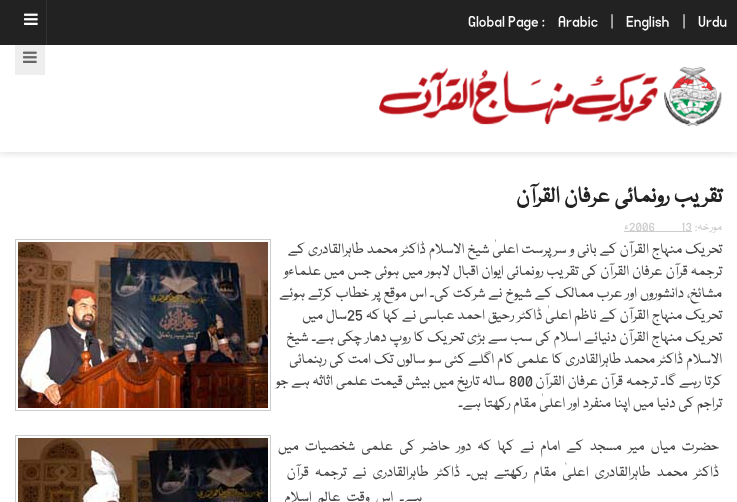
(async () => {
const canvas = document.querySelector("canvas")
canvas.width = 737
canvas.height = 502
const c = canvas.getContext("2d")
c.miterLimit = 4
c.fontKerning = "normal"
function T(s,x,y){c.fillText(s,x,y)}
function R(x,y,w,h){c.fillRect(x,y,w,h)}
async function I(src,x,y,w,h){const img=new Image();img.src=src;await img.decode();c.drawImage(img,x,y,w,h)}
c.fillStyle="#fff"
R(0,0,737,502)
c.save()
c.beginPath()
c.rect(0,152,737,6)
c.clip()
c.fillStyle="#22222233"
c.filter="blur(5px)"
c.beginPath()
c.rect(0,0,737,152)
c.fill()
c.filter="none"
c.restore()
c.fillStyle="#222"
R(0,0,737,45)
c.font="16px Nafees"
c.fillStyle="#fff"
T("Urdu",698,25)
T("|",683,25)
T("English",626,25)
T("|",611,25)
T("Arabic",558,25)
T("Global Page :",468,25)
c.fillStyle="#333"
R(46,0,1,45)
await I("1.png",24,13,14,12)
c.fillStyle="#eee"
R(15,45,30,30)
await I("2.png",23,51,14,12)
await I("3.png",379,66,343,61)
c.direction="rtl"
c.font="bold 24px Nafees"
c.fillStyle="#222"
T("تقریب رونمائی عرفان القرآن",722,202)
c.font="13px Nafees"
c.fillStyle="#ccc"
T("مورخہ:",722,230)
R(624,231,68,1)
c.direction="ltr"
T("13",681,230)
T("2006",629,230)
c.direction="rtl"
T("ء",629,230)
c.font="16px Nafees"
c.fillStyle="#444"
T("تحریک منہاج القرآن کے بانی و سرپرست اعلیٰ شیخ الاسلام ڈاکٹر محمد طاہرالقادری کے",722,253)
c.strokeStyle="#ccc"
c.strokeRect(15.5,239.5,255,171)
await I("4.png",18,242,250,166)
T("ترجمہ قرآن عرفان القرآن کی تقریب رونمائی ایوان اقبال لاہور میں ہوئی جس میں",722,275)
T("علماءو",321,275)
T("مشائخ، دانشوروں اور عرب ممالک کے شیوخ نے شرکت کی۔ اس موقع پر خطاب کرتے ہوئے",722,297)
T("تحریک منہاج القرآن کے ناظم اعلیٰ ڈاکٹر رحیق احمد عباسی نے کہا کہ",722,319)
c.direction="ltr"
T("25",347,319)
c.direction="rtl"
T("سال میں",347,319)
T("تحریک",722,341)
T("منہاج القرآن دنیائے اسلام کی سب سے بڑی تحریک کا روپ دھار چکی ہے۔ شیخ",682,341)
T("الاسلام",722,363)
T("ڈاکٹر محمد طاہرالقادری کا علمی کام اگلے کئی سو سالوں تک امت کی رہنمائی",683,363)
T("کرتا رہے",722,385)
T("گا۔ ترجمہ قرآن عرفان القرآن",676,385)
c.direction="ltr"
T("800",509,385)
c.direction="rtl"
T("سالہ تاریخ میں بیش قیمت علمی اثاثہ ہے جو",505,385)
T("تراجم",722,407)
T("کی دنیا میں اپنا منفرد اور اعلیٰ مقام رکھتا ہے۔",694,407)
c.wordSpacing="3.25px"
T("حضرت میاں میر مسجد کے امام نے",719,450)
T("کہا کہ دور حاضر کی علمی شخصیات میں",514,450)
c.strokeRect(15.5,435.5,255,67)
await I("5.png",18,438,250,64)
T("ڈاکٹر محمد طاہرالقادری اعلیٰ مقام رکھتے ہیں۔",719,476)
T("ڈاکٹر طاہرالقادری نے ترجمہ قرآن",460,476)
T("ہے۔ اس وقت عالم اسلام",422,501)
})()
